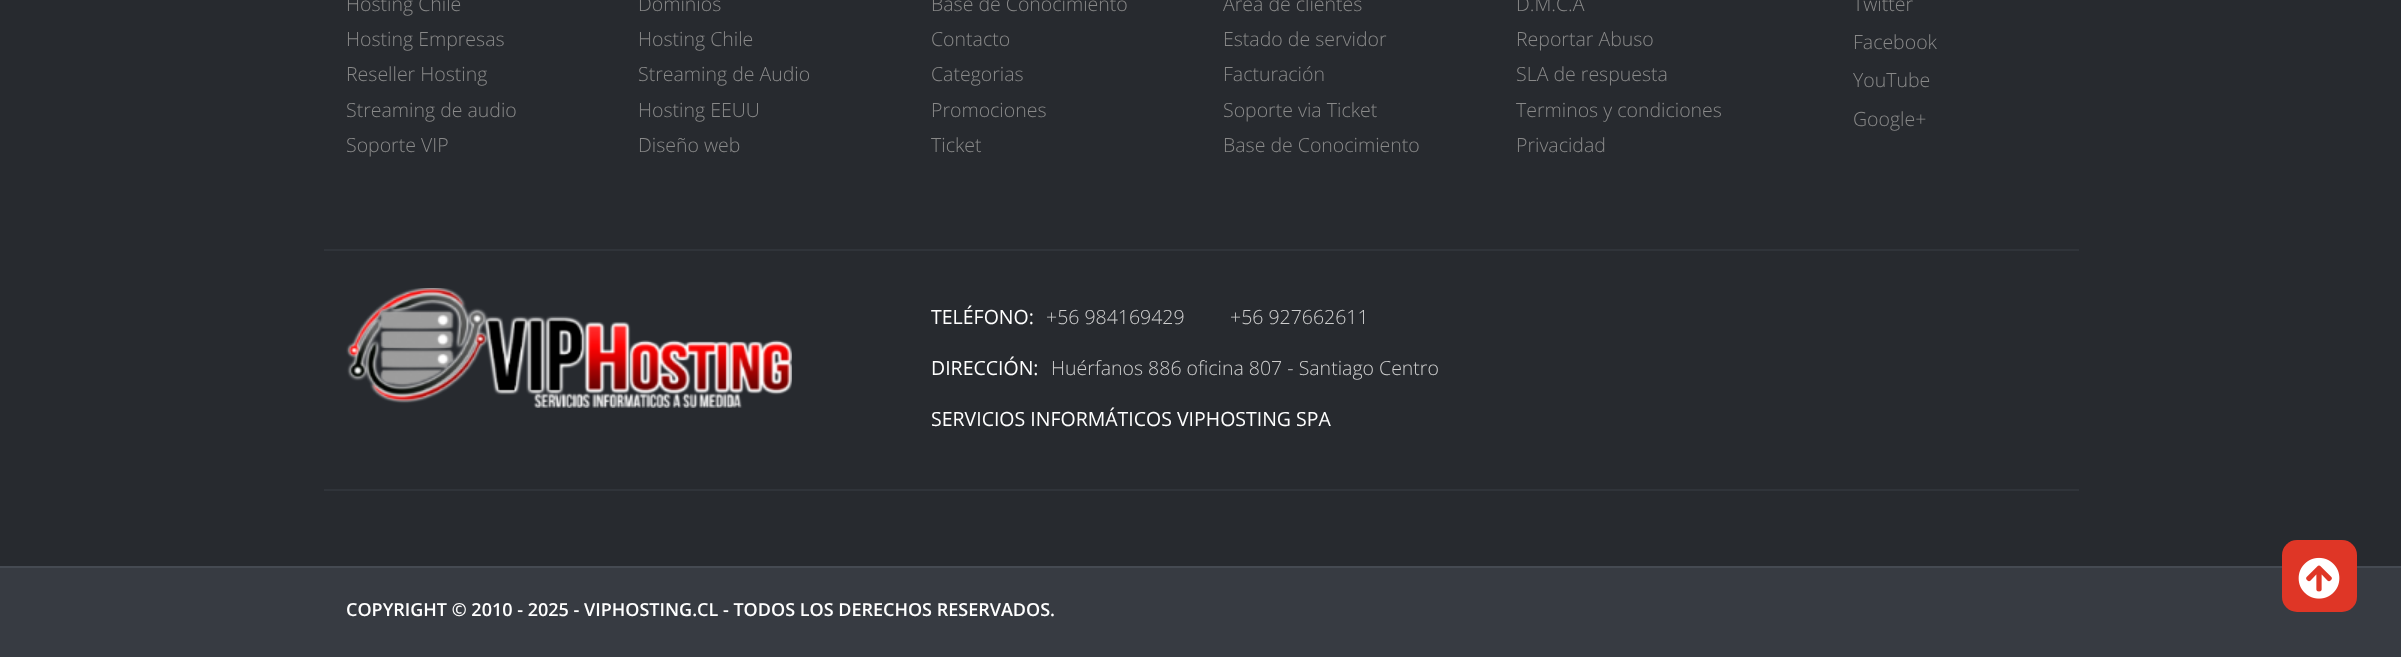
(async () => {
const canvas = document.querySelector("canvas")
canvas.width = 2401
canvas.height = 657
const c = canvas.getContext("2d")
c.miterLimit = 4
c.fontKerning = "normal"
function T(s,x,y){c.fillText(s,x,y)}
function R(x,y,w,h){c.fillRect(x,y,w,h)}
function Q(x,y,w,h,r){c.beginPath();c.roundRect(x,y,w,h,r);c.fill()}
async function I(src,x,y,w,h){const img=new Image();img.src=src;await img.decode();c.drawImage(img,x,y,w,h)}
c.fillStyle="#272a2f"
R(0,0,2401,657)
c.font="300 19.5px Open Sans"
c.fillStyle="#898989"
T("Hosting Chile",346,11)
T("Hosting Empresas",346,46)
T("Reseller Hosting",346,81)
T("Streaming de audio",346,117)
T("Soporte VIP",346,152)
T("Dominios",638,11)
T("Hosting Chile",638,46)
T("Streaming de Audio",638,81)
T("Hosting EEUU",638,117)
T("Diseño web",638,152)
T("Base de Conocimiento",931,11)
T("Contacto",931,46)
T("Categorias",931,81)
T("Promociones",931,117)
T("Ticket",931,152)
T("Area de clientes",1223,11)
T("Estado de servidor",1223,46)
T("Facturación",1223,81)
T("Soporte via Ticket",1223,117)
T("Base de Conocimiento",1223,152)
T("D.M.C.A",1516,11)
T("Reportar Abuso",1516,46)
T("SLA de respuesta",1516,81)
T("Terminos y condiciones",1516,117)
T("Privacidad",1516,152)
T("Twitter",1853,11)
T("Facebook",1853,49)
T("YouTube",1853,87)
T("Google+",1853,126)
c.fillStyle="#30343a"
R(324,249,1755,2)
R(324,489,1755,2)
await I("1.png",346,288,446,120)
c.font="19.5px Open Sans"
c.fillStyle="#fff"
T("TELÉFONO:",931,324)
c.font="300 19.5px Open Sans"
c.fillStyle="#cecece"
T("+56 984169429",1046,324)
T("+56 927662611",1230,324)
c.font="19.5px Open Sans"
c.fillStyle="#fff"
T("DIRECCIÓN:",931,375)
c.font="300 19.5px Open Sans"
c.fillStyle="#cecece"
T("Huérfanos 886 oficina 807 - Santiago Centro",1051,375)
c.font="19.5px Open Sans"
c.fillStyle="#fff"
T("SERVICIOS INFORMÁTICOS VIPHOSTING SPA",931,426)
c.fillStyle="#373b42"
R(0,568,2401,89)
c.fillStyle="#454a52"
R(0,566,2401,2)
c.font="600 18px Open Sans"
c.fillStyle="#fff"
T("COPYRIGHT © 2010 - 2025 - VIPHOSTING.CL - TODOS LOS DERECHOS RESERVADOS.",346,616)
c.fillStyle="#df3626"
Q(2282,540,75,72,15)
await I("2.png",2298,557,42,42)
})()
